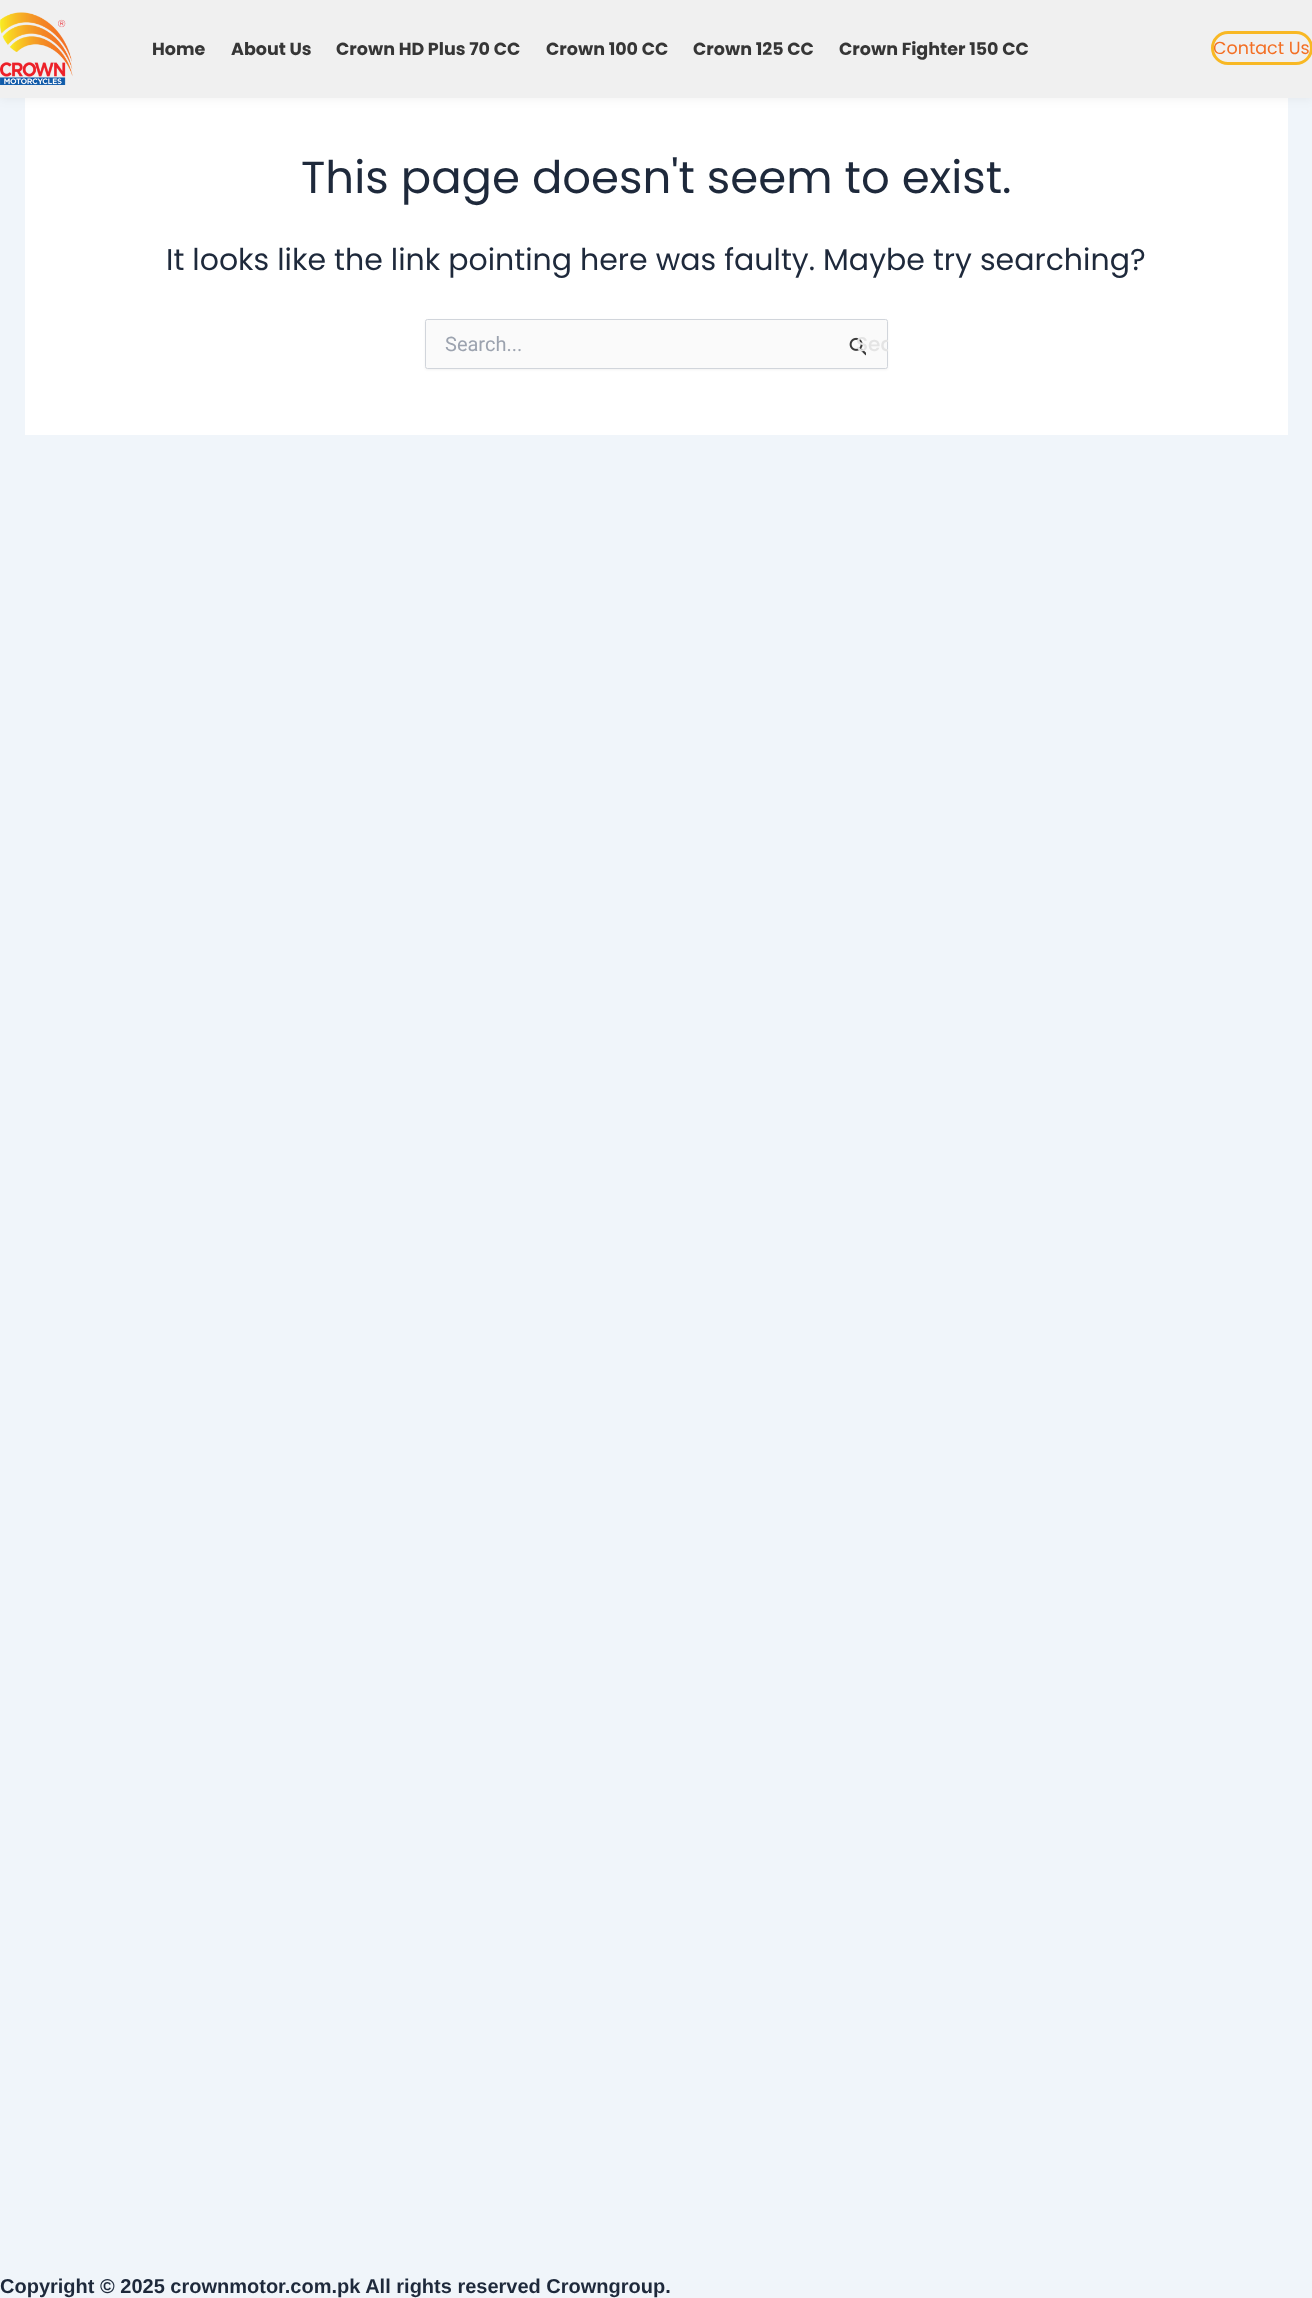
(async () => {
const canvas = document.querySelector("canvas")
canvas.width = 1312
canvas.height = 2298
const c = canvas.getContext("2d")
c.miterLimit = 4
c.fontKerning = "normal"
function T(s,x,y){c.fillText(s,x,y)}
function R(x,y,w,h){c.fillRect(x,y,w,h)}
async function I(src,x,y,w,h){const img=new Image();img.src=src;await img.decode();c.drawImage(img,x,y,w,h)}
c.fillStyle="#f0f5fa"
R(0,0,1312,2298)
c.fillStyle="#fff"
R(25,98,1263,337)
c.fillStyle="#0000000f"
c.filter="blur(6px)"
c.beginPath()
c.rect(0,0,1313,98)
c.fill()
c.filter="none"
c.fillStyle="#f0f0f0"
R(0,0,1312,98)
await I("1.png",0,12,73,73)
c.font="bold 17.5px Poppins"
c.fillStyle="#363636"
T("Home",152,55)
T("About Us",231,55)
T("Crown HD Plus 70 CC",336,55)
T("Crown 100 CC",546,55)
T("Crown 125 CC",693,55)
T("Crown Fighter 150 CC",839,55)
c.beginPath()
c.roundRect(1212.5,32.5,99,31,15.5)
c.strokeStyle="#f8b824"
c.lineWidth=3
c.stroke()
c.save()
c.beginPath()
c.roundRect(1214,34,96,29,14.5)
c.clip()
c.font="17.5px Poppins"
c.fillStyle="#f36f24"
T("Contact Us",1213,54)
c.restore()
c.font="45px Poppins"
c.fillStyle="#1e293b"
T("This page doesn't seem to exist.",301,193)
c.font="30px Poppins"
T("It looks like the link pointing here was faulty. Maybe try searching?",166,270)
c.fillStyle="#0000000d"
c.filter="blur(1px)"
c.beginPath()
c.roundRect(425,320,463,50,2.5)
c.fill()
c.filter="none"
c.fillStyle="#fafafa"
c.beginPath()
c.roundRect(425.5,319.5,462,49,2)
c.fill()
c.strokeStyle="#d1d5db"
c.lineWidth=1
c.stroke()
c.font="20px Roboto"
c.fillStyle="#9ca3af"
T("Search...",445,351)
await I("2.png",849,337,17,19)
c.save()
c.beginPath()
c.roundRect(831,319,57,52,2.5)
c.clip()
c.font="500 20px Poppins"
c.fillStyle="#e4e4e4"
T("Sea",856,351)
c.restore()
c.font="bold 20px Liberation Sans"
c.fillStyle="#1e293b"
T("Copyright © 2025 crownmotor.com.pk All rights reserved Crowngroup.",0,2293)
})()
